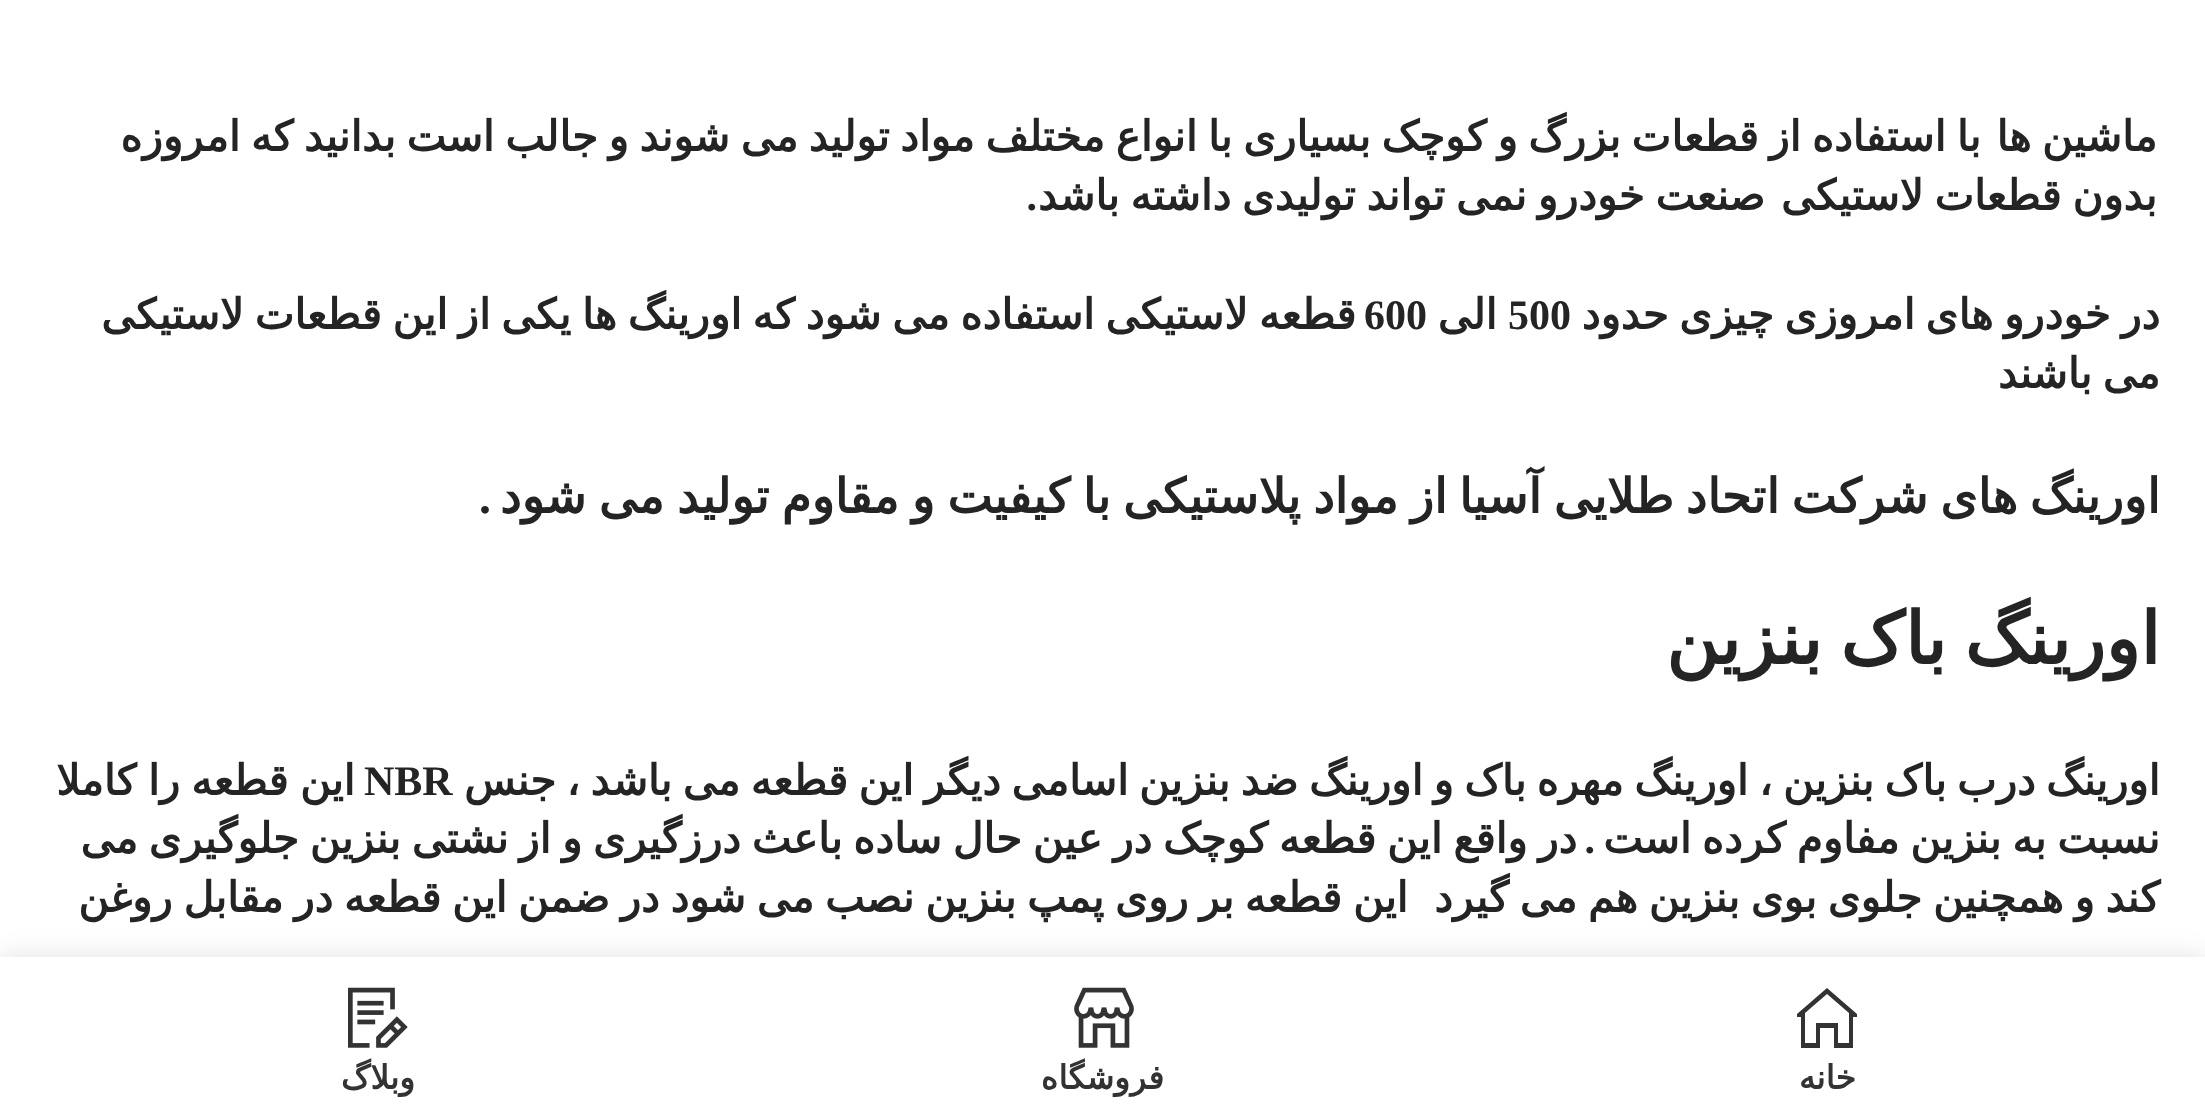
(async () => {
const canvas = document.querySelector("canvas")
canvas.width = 2205
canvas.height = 1120
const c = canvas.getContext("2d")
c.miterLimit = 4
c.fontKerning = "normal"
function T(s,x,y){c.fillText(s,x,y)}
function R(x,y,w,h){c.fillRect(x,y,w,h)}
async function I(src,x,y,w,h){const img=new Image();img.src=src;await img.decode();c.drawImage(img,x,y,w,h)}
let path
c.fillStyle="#fff"
R(0,0,2205,1120)
c.wordSpacing="-2.75px"
c.direction="rtl"
c.font="bold 42px DejaVu Sans"
c.fillStyle="#242424"
T("ماشین ها",2157,151)
T("با استفاده از قطعات بزرگ و کوچک بسیاری با انواع مختلف مواد تولید می شوند و جالب است بدانید که امروزه",1981,151)
c.wordSpacing="-2.6px"
T("بدون قطعات لاستیکی",2157,210)
T("صنعت خودرو نمی تواند تولیدی داشته باشد",1765,210)
c.wordSpacing="0px"
c.font="bold 42px Liberation Serif"
T(".",1037,210)
c.wordSpacing="-2.9px"
c.font="bold 42px DejaVu Sans"
T("در خودرو های امروزی چیزی حدود",2160,329)
c.wordSpacing="0px"
c.direction="ltr"
c.font="bold 42px Liberation Serif"
T("500",1508,329)
c.direction="rtl"
c.font="bold 42px DejaVu Sans"
T("الی",1497,329)
c.wordSpacing="-2.6px"
T("قطعه لاستیکی استفاده می شود که اورینگ ها یکی از این قطعات لاستیکی",1356,329)
c.wordSpacing="0px"
c.direction="ltr"
c.font="bold 42px Liberation Serif"
T("600",1364,329)
c.wordSpacing="-2.9px"
c.direction="rtl"
c.font="bold 42px DejaVu Sans"
T("می باشند",2160,388)
c.wordSpacing="-3.25px"
c.font="bold 48px DejaVu Sans"
T("اورینگ های شرکت اتحاد طلایی آسیا",2160,513)
c.wordSpacing="-2.9px"
T("از مواد پلاستیکی با کیفیت و مقاوم تولید می شود",1447,513)
c.wordSpacing="0px"
c.font="bold 48px Liberation Serif"
T(".",491,513)
c.wordSpacing="-5px"
c.font="bold 72px DejaVu Sans"
T("اورینگ باک بنزین",2160,664)
c.wordSpacing="-2.9px"
c.font="bold 42px DejaVu Sans"
T("اورینگ درب باک بنزین ، اورینگ مهره باک و اورینگ ضد بنزین اسامی دیگر این قطعه می باشد ، جنس",2160,795)
c.wordSpacing="0px"
c.direction="ltr"
c.font="bold 42px Liberation Serif"
T("NBR",364,795)
c.wordSpacing="-2px"
c.direction="rtl"
c.font="bold 42px DejaVu Sans"
T("این قطعه را کاملا",355,795)
c.wordSpacing="-2.6px"
T("نسبت به بنزین مفاوم کرده است",2160,853)
T("در واقع این قطعه کوچک در عین حال ساده باعث درزگیری و از نشتی بنزین جلوگیری می",1577,853)
c.wordSpacing="0px"
c.font="bold 42px Liberation Serif"
T(".",1595,853)
c.wordSpacing="-2.6px"
c.font="bold 42px DejaVu Sans"
T("کند و همچنین جلوی بوی بنزین هم می گیرد",2160,912)
T("این قطعه بر روی پمپ بنزین نصب می شود در ضمن این قطعه در مقابل روغن",1408,912)
c.fillStyle="#0000001f"
c.filter="blur(13.5px)"
c.beginPath()
c.rect(0,957,2205,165)
c.fill()
c.filter="none"
c.fillStyle="#fff"
R(0,957,2205,163)
c.fillStyle="#333"
path = new Path2D("M1827 988l-30 26v3h4v31h19v-20h14v20h19v-31h4v-3zm0 6l22 19v30h-11v-20h-22v20h-11v-30z")
c.fill(path)
c.wordSpacing="0px"
c.font="bold 33px DejaVu Sans"
T("خانه",1856,1089)
await I("1.png",1074,987,60,61)
T("فروشگاه",1164,1089)
await I("2.png",348,987,60,61)
T("وبلاگ",415,1089)
})()
